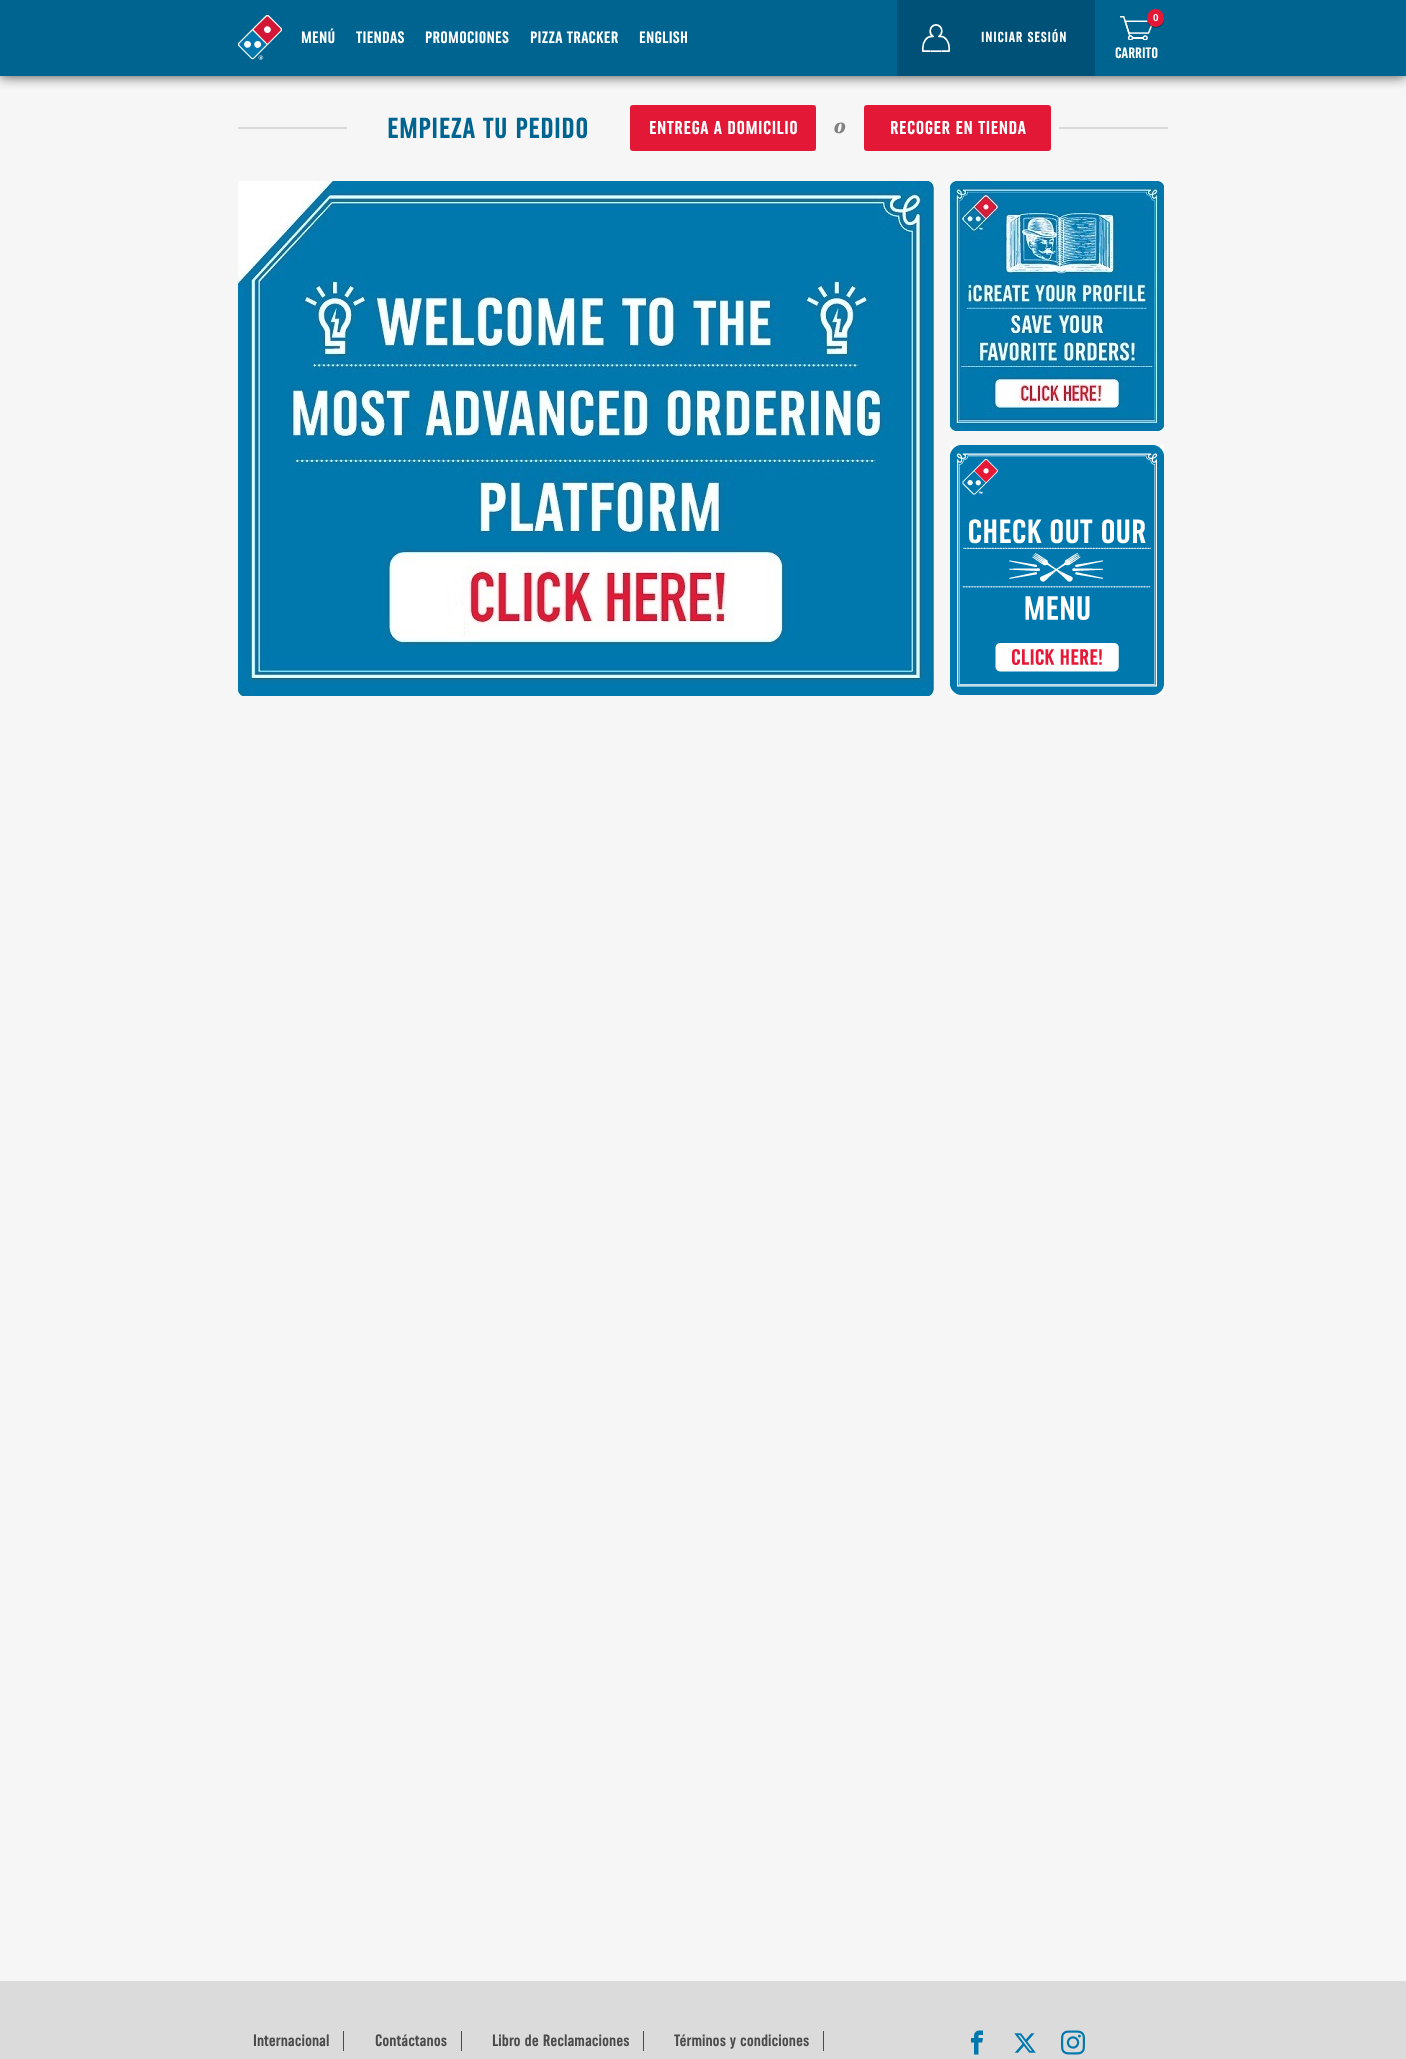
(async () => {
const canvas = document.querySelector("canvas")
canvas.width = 1406
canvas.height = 2059
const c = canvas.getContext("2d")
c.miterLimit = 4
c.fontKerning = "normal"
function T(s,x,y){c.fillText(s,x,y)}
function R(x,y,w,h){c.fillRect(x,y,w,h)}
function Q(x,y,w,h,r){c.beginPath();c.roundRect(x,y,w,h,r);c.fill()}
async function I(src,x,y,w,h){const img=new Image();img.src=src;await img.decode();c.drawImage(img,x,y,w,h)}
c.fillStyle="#f6f6f6"
R(0,0,1406,2059)
c.fillStyle="#006491"
R(0,0,1406,76)
c.save()
c.beginPath()
c.rect(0,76,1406,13)
c.clip()
c.fillStyle="#000000bf"
c.filter="blur(6.5px)"
c.beginPath()
c.rect(0,0,1406,76)
c.fill()
c.filter="none"
c.restore()
await I("1.png",238,15,44,45)
c.letterSpacing="0.25px"
c.font="bold 16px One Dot"
c.fillStyle="#fff"
T("MENÚ",301,43)
T("TIENDAS",356,43)
T("PROMOCIONES",425,43)
T("PIZZA TRACKER",530,43)
T("ENGLISH",639,43)
c.fillStyle="#005177"
R(897,0,198,76)
await I("2.png",922,24,28,28)
c.letterSpacing="0.75px"
c.font="bold 14px One Dot"
c.fillStyle="#fff"
T("INICIAR SESIÓN",981,42)
await I("3.png",1120,16,33,24)
c.fillStyle="#00000066"
c.filter="blur(0.5px)"
c.beginPath()
c.roundRect(1147,10,17,18,8.5)
c.fill()
c.filter="none"
c.fillStyle="#e31837"
Q(1147,9,17,18,8.5)
c.letterSpacing="0px"
c.font="bold 10px Liberation Sans"
c.fillStyle="#fff"
T("0",1153,21)
c.font="bold 14.5px One Dot"
T("CARRITO",1115,58)
c.fillStyle="#d9d9d9"
R(238,127,109,2)
c.letterSpacing="0.4px"
c.font="bold 28px One Dot"
c.fillStyle="#006491"
T("EMPIEZA TU PEDIDO",387,138)
c.fillStyle="#e31837"
Q(630,105,186,46,3)
c.letterSpacing="0.5px"
c.font="bold 18px One Dot"
c.fillStyle="#fff"
T("ENTREGA A DOMICILIO",649,134)
c.letterSpacing="0.75px"
c.font="italic 900 22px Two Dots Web"
c.fillStyle="#828282"
T("o",834,133)
c.fillStyle="#e31837"
Q(864,105,187,46,3)
c.letterSpacing="0.5px"
c.font="bold 18px One Dot"
c.fillStyle="#fff"
T("RECOGER EN TIENDA",890,134)
c.fillStyle="#d9d9d9"
R(1059,127,109,2)
await I("4.png",238,181,696,515)
await I("5.png",950,181,214,250)
await I("6.png",950,445,214,250)
c.fillStyle="#dbdbdb"
R(0,1981,1406,78)
c.fillStyle="#4a4a4a"
R(343,2031,1,20)
c.letterSpacing="0px"
c.font="bold 16px One Dot"
T("Internacional",253,2046)
R(461,2031,1,20)
T("Contáctanos",375,2046)
R(643,2031,1,20)
T("Libro de Reclamaciones",492,2046)
R(823,2031,1,20)
T("Términos y condiciones",674,2046)
await I("7.png",971,2030,12,25)
await I("8.png",1014,2033,22,20)
await I("9.png",1061,2030,24,25)
})()
